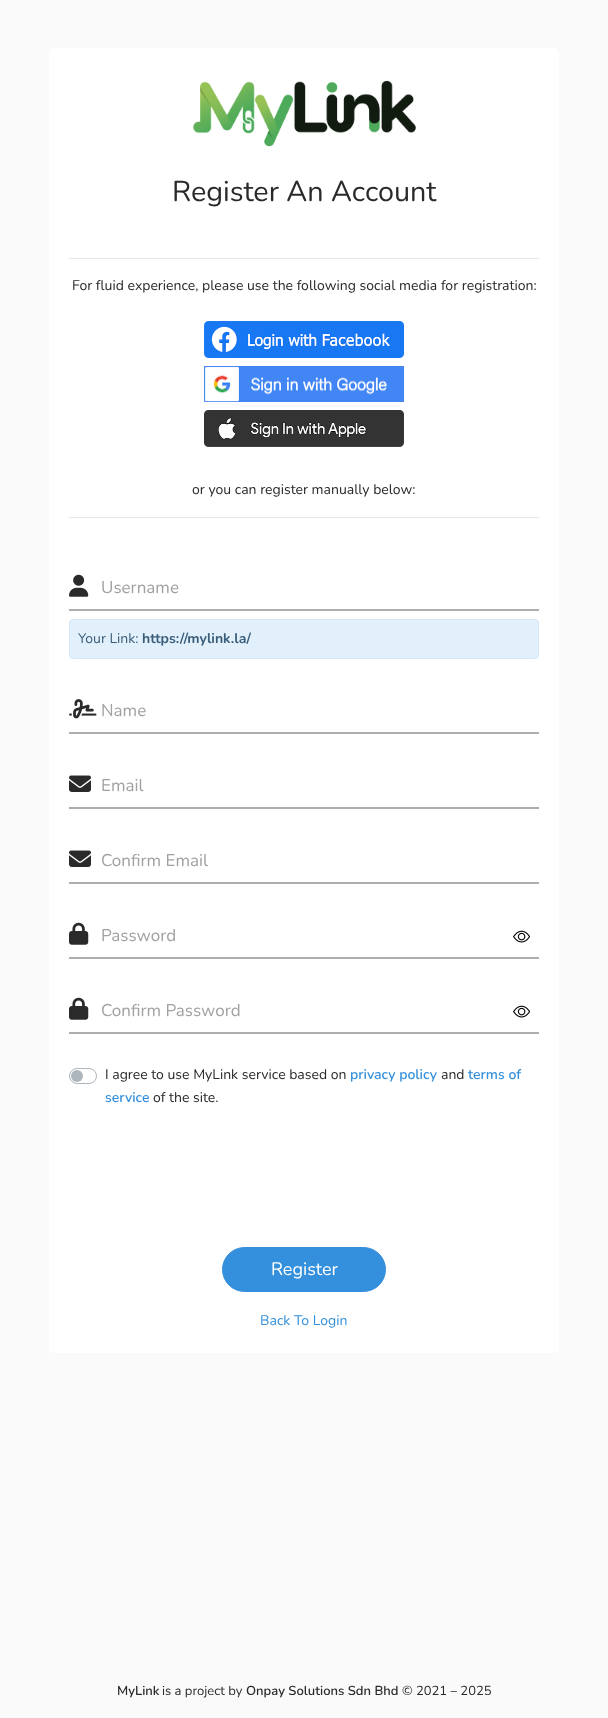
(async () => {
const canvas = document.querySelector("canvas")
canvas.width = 608
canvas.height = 1718
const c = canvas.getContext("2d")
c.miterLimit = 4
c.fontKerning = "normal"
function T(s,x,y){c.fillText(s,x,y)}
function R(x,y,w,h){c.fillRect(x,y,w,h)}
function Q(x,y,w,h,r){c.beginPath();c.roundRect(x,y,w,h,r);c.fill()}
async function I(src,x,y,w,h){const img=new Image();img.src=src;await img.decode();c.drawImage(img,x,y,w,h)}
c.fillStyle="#fafafa"
R(0,0,608,1718)
c.fillStyle="#fff"
Q(49,48,510,1305,5)
await I("1.png",193,80,223,67)
c.font="28.75px Nunito"
c.fillStyle="#2a2a2a"
T("Register An Account",172,201)
c.fillStyle="#e6e6e6"
R(69,258,470,1)
c.font="14px Nunito"
c.fillStyle="#2a2a2a"
T("For fluid experience, please use the following social media for registration:",72,290)
await I("2.png",204,321,200,37)
await I("3.png",204,366,200,36)
await I("4.png",204,410,200,37)
T("or you can register manually below:",192,494)
c.fillStyle="#e6e6e6"
R(69,517,470,1)
await I("5.png",69,574,20,23)
c.fillStyle="#adadad"
R(69,609,470,2)
c.font="17px Nunito"
c.fillStyle="#a1a1a1"
T("Username",101,593)
c.fillStyle="#e2f0fb"
c.beginPath()
c.roundRect(69.5,619.5,469,39,3.5)
c.fill()
c.strokeStyle="#d6e9f9"
c.stroke()
c.font="14px Nunito"
c.fillStyle="#385d7a"
T("Your Link:",78,643)
c.font="bold 14px Nunito"
T("https://mylink.la/",142,643)
await I("6.png",69,699,28,20)
c.fillStyle="#adadad"
R(69,732,470,2)
c.font="17px Nunito"
c.fillStyle="#a1a1a1"
T("Name",101,716)
await I("7.png",69,775,22,17)
c.fillStyle="#adadad"
R(69,807,470,2)
c.fillStyle="#a1a1a1"
T("Email",101,791)
await I("7.png",69,850,22,17)
c.fillStyle="#adadad"
R(69,882,470,2)
c.fillStyle="#a1a1a1"
T("Confirm Email",101,866)
await I("8.png",69,922,20,23)
c.fillStyle="#adadad"
R(69,957,470,2)
c.fillStyle="#a1a1a1"
T("Password",101,941)
await I("9.png",513,930,17,13)
await I("8.png",69,997,20,23)
c.fillStyle="#adadad"
R(69,1032,470,2)
c.fillStyle="#a1a1a1"
T("Confirm Password",101,1016)
await I("9.png",513,1005,17,13)
c.beginPath()
c.roundRect(69.5,1068.5,27,15,7.5)
c.strokeStyle="#adb5bd"
c.stroke()
c.font="14px Nunito"
c.fillStyle="#2a2a2a"
T("I agree to use MyLink service based on",105,1079)
c.font="600 14px Nunito"
c.fillStyle="#3490dc"
T("privacy policy",350,1079)
c.font="14px Nunito"
c.fillStyle="#2a2a2a"
T("and",441,1079)
c.font="600 14px Nunito"
c.fillStyle="#3490dc"
T("terms of",468,1079)
c.fillStyle="#adb5bd"
c.beginPath()
c.arc(77,1076,6,0,7)
c.fill()
c.fillStyle="#3490dc"
T("service",105,1102)
c.font="14px Nunito"
c.fillStyle="#2a2a2a"
T("of the site.",153,1102)
c.fillStyle="#3490dc"
c.beginPath()
c.roundRect(222.5,1247.5,163,44,22)
c.fill()
c.strokeStyle="#3490dc"
c.stroke()
c.font="18px Nunito"
c.fillStyle="#fff"
T("Register",271,1275)
c.font="14px Nunito"
c.fillStyle="#3490dc"
T("Back To Login",260,1325)
c.font="600 13px Nunito"
c.fillStyle="#2a2a2a"
T("MyLink",117,1695)
c.font="13px Nunito"
T("is a project by",162,1695)
c.font="600 13px Nunito"
T("Onpay Solutions Sdn Bhd",246,1695)
c.font="13px Nunito"
T("© 2021 – 2025",402,1695)
})()
